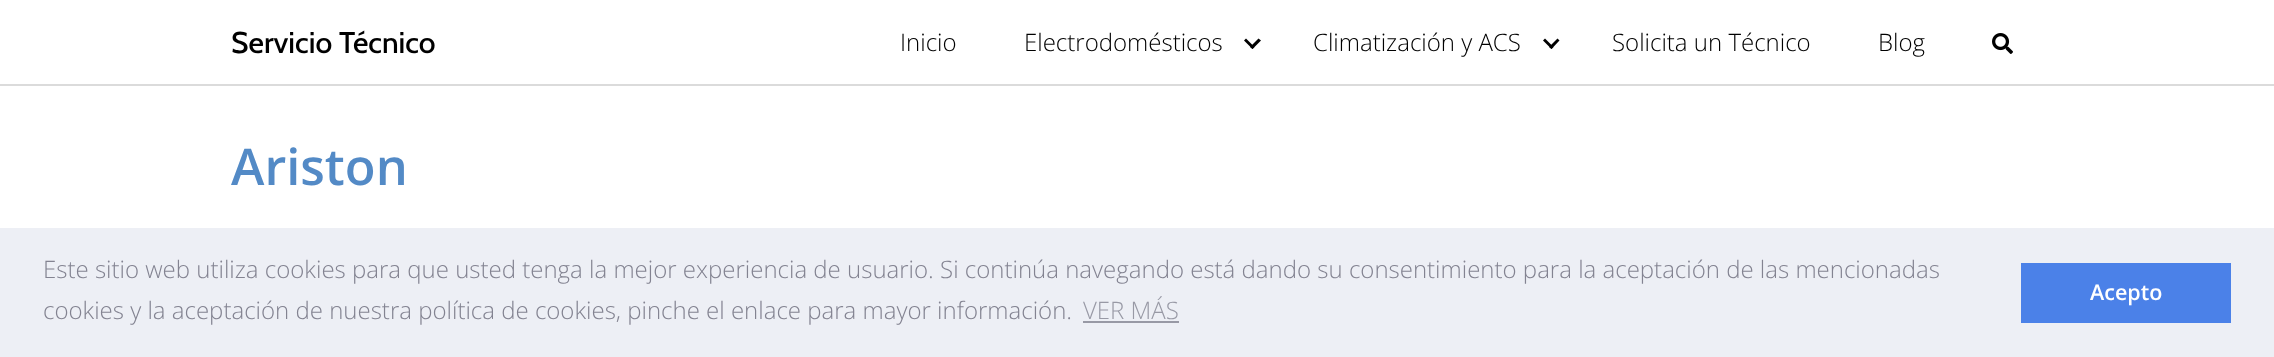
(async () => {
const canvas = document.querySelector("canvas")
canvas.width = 2274
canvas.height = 357
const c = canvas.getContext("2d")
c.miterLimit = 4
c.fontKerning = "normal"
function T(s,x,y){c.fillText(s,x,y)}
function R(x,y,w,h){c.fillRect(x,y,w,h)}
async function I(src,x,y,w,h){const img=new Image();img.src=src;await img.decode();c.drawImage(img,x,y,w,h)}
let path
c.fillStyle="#fff"
R(0,0,2274,357)
c.fillStyle="#dbdbdb"
R(0,84,2274,2)
c.font="500 30px Cabin"
c.fillStyle="#000"
T("Servicio Técnico",231,53)
c.font="300 24px Open Sans"
T("Inicio",900,51)
T("Electrodomésticos",1024,51)
path = new Path2D("M1258.5 38.5l2.5 2l-8.5 8.5l-2.5-2z")
c.fill(path)
path = new Path2D("M1246 38.5l8.5 8.5l-2 2l-8.5-8.5z")
c.fill(path)
T("Climatización y ACS",1313,51)
path = new Path2D("M1557.5 38.5l2 2l-8 8.5l-2.5-2z")
c.fill(path)
path = new Path2D("M1545 38.5l8.5 8.5l-2 2l-8.5-8.5z")
c.fill(path)
T("Solicita un Técnico",1612,51)
T("Blog",1878,51)
await I("1.png",1992,33,21,21)
c.font="600 50.5px Open Sans"
c.fillStyle="#538ac6"
T("Ariston",231,185)
c.fillStyle="#edeff5"
R(0,228,2274,129)
c.font="300 24px Open Sans"
c.fillStyle="#838391"
T("Este sitio web utiliza cookies para que usted tenga la mejor experiencia de usuario. Si continúa navegando está dando su consentimiento para la aceptación de las mencionadas",43,278)
T("cookies y la aceptación de nuestra política de cookies, pinche el enlace para mayor información.",43,319)
c.fillStyle="#9899a5"
T("VER MÁS",1083,319)
R(1083,321,96,2)
c.fillStyle="#4b81e8"
R(2021,263,210,60)
c.font="600 21.5px Open Sans"
c.fillStyle="#fff"
T("Acepto",2090,300)
})()
